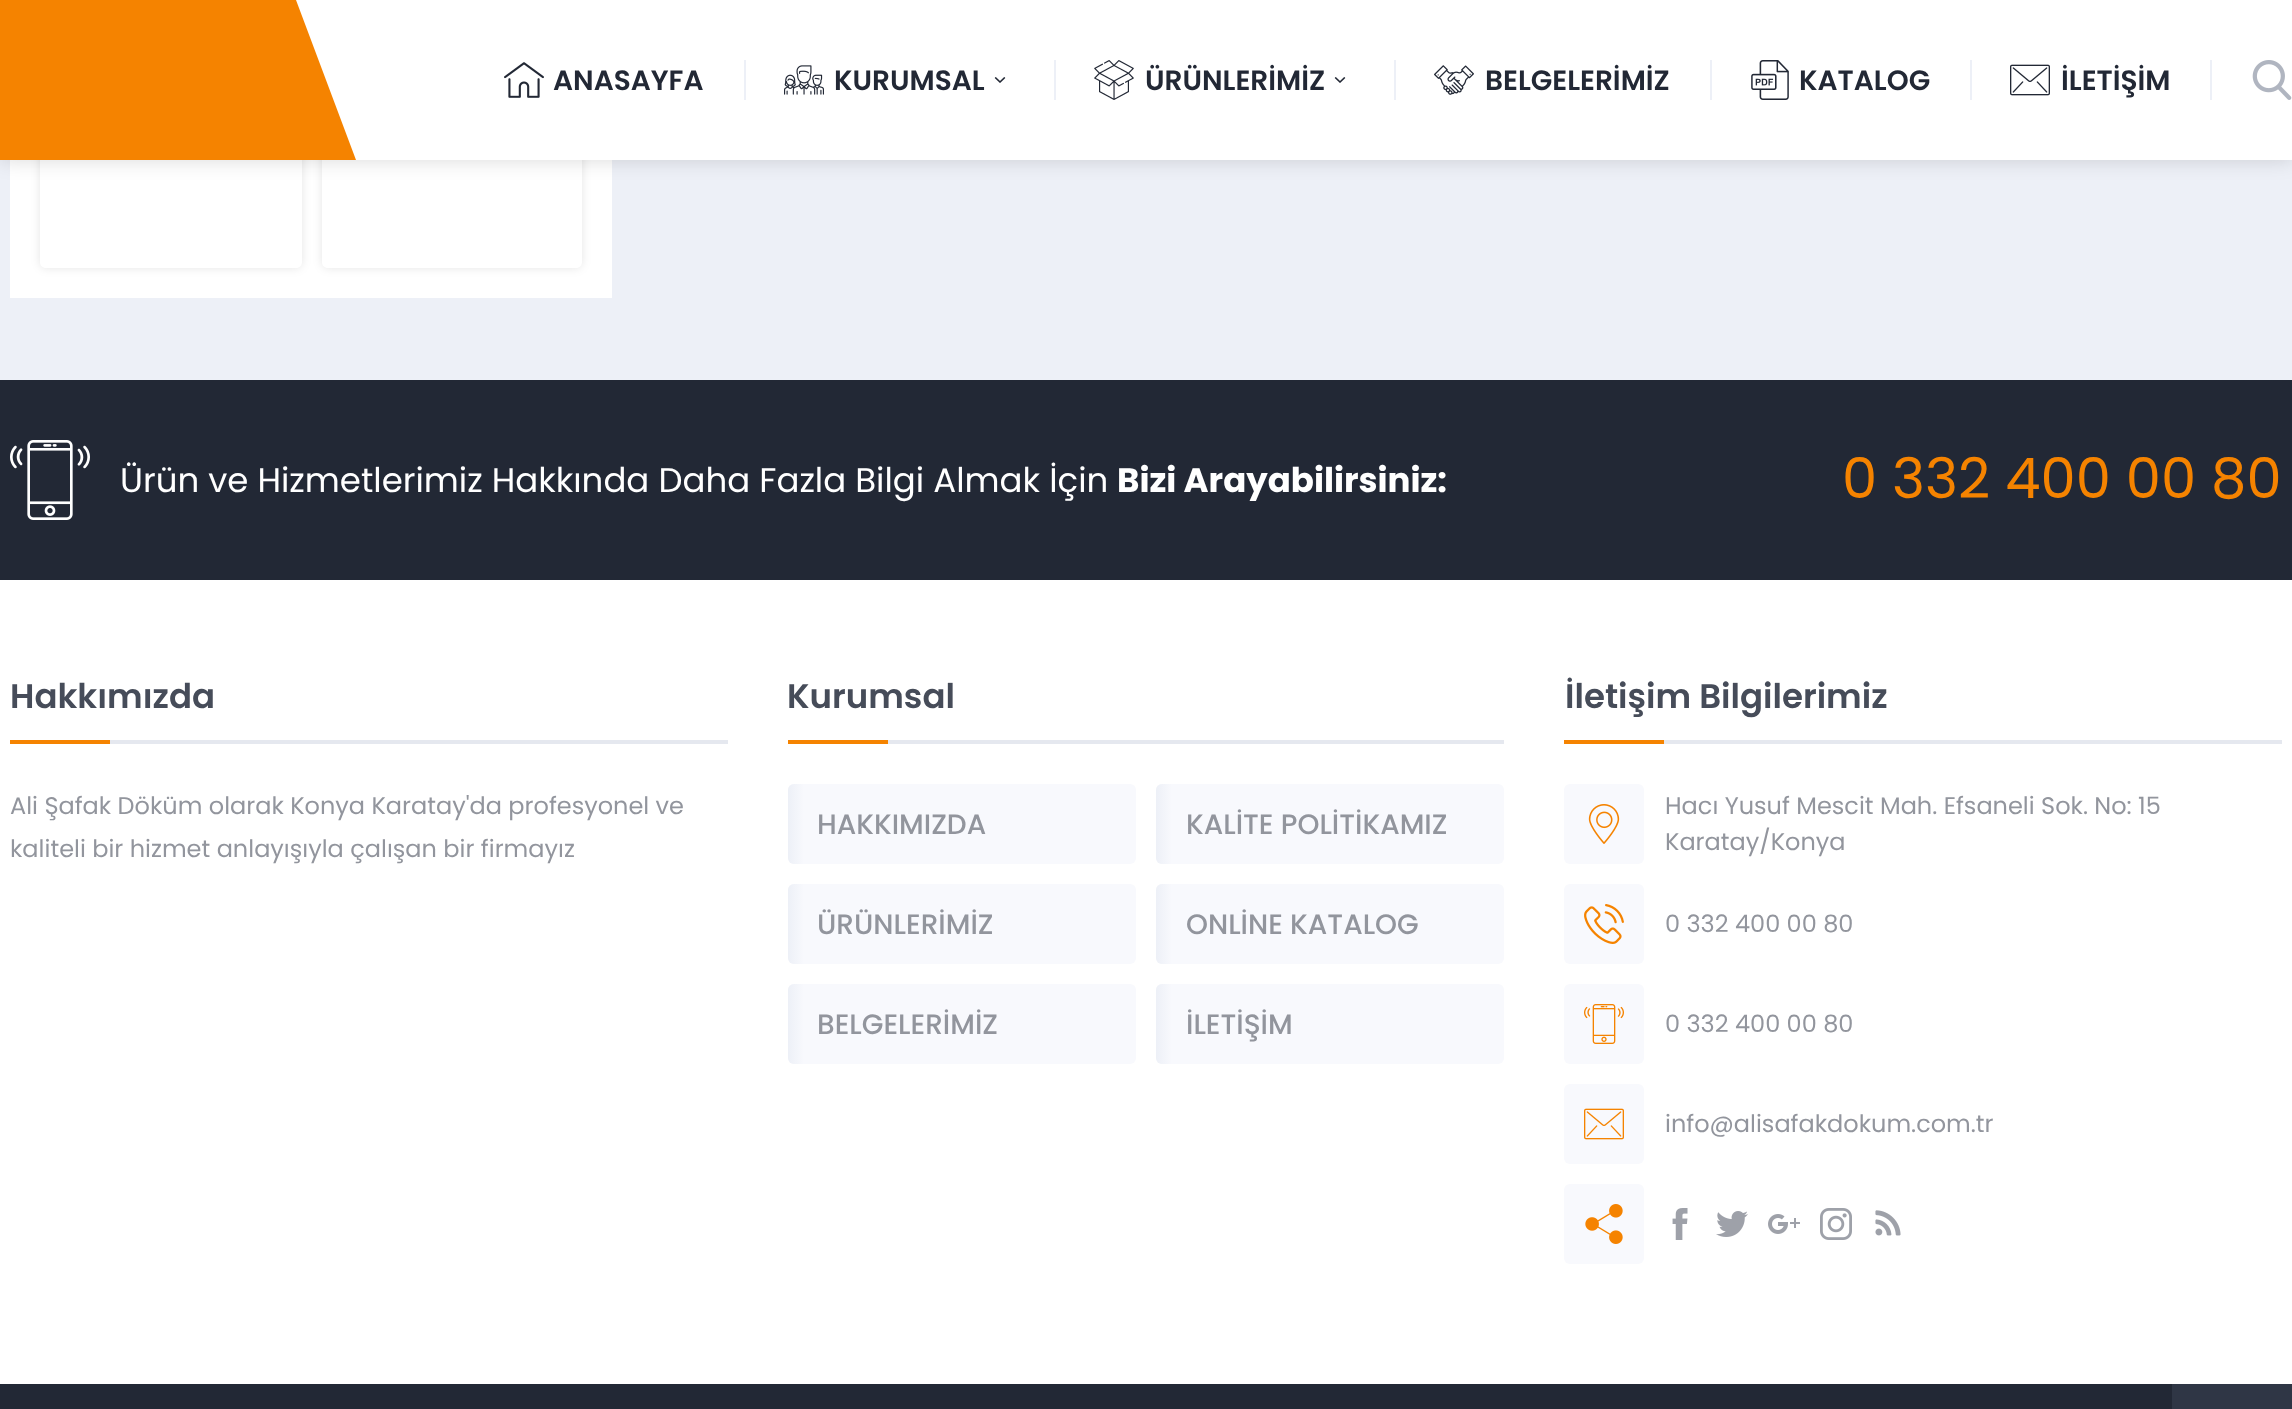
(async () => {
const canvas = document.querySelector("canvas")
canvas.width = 2292
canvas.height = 1409
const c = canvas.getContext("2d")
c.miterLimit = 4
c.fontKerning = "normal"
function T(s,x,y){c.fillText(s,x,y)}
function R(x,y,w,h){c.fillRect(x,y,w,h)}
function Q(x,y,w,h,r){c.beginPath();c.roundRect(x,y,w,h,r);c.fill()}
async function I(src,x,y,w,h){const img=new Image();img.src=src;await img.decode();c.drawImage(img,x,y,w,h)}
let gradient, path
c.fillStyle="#edf0f7"
R(0,0,2292,1409)
c.fillStyle="#fff"
R(10,160,602,138)
c.save()
path = new Path2D("M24 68h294v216h-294zm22 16h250c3.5 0 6 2.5 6 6v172c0 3.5-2.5 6-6 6h-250c-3.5 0-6-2.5-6-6v-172c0-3.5 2.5-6 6-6z")
c.clip(path,"evenodd")
c.fillStyle="#0000001a"
c.filter="blur(5px)"
c.beginPath()
c.roundRect(40,84,262,184,6)
c.fill()
c.filter="none"
c.restore()
c.save()
path = new Path2D("M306 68h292v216h-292zm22 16h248c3.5 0 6 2.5 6 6v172c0 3.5-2.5 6-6 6h-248c-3.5 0-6-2.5-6-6v-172c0-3.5 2.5-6 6-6z")
c.clip(path,"evenodd")
c.fillStyle="#0000001a"
c.filter="blur(5px)"
c.beginPath()
c.roundRect(322,84,260,184,6)
c.fill()
c.filter="none"
c.restore()
c.fillStyle="#00000026"
c.filter="blur(10px)"
c.beginPath()
c.rect(0,0,2292,160)
c.fill()
c.filter="none"
c.fillStyle="#fff"
R(356,0,1936,160)
c.fillStyle="#f58300"
R(0,0,356,160)
c.fillStyle="#fff"
path = new Path2D("M356 0v160l-60-160z")
c.fill(path)
await I("1.png",504,62,40,36)
c.font="600 28px Poppins"
c.fillStyle="#222835"
T("ANASAYFA",553,90)
c.fillStyle="#edf0f7"
R(744,60,2,40)
await I("2.png",784,65,40,30)
c.fillStyle="#222835"
T("KURUMSAL",834,90)
await I("3.png",994,77,12,6)
c.fillStyle="#edf0f7"
R(1054,60,2,40)
await I("4.png",1094,60,40,40)
c.fillStyle="#222835"
T("ÜRÜNLERİMİZ",1145,90)
await I("3.png",1334,77,12,6)
c.fillStyle="#edf0f7"
R(1394,60,2,40)
await I("5.png",1434,65,40,30)
c.fillStyle="#222835"
T("BELGELERİMİZ",1485,90)
c.fillStyle="#edf0f7"
R(1710,60,2,40)
await I("6.png",1751,60,38,40)
c.fillStyle="#222835"
T("KATALOG",1799,90)
c.fillStyle="#edf0f7"
R(1970,60,2,40)
await I("7.png",2010,64,40,32)
c.fillStyle="#222835"
T("İLETİŞİM",2061,90)
c.fillStyle="#edf0f7"
R(2210,60,2,40)
await I("8.png",2252,60,40,40)
c.fillStyle="#222835"
R(0,380,2292,200)
await I("9.png",10,440,80,80)
c.font="34px Poppins"
c.fillStyle="#fff"
T("Ürün ve Hizmetlerimiz Hakkında Daha Fazla Bilgi Almak İçin",120,492)
c.font="bold 34px Poppins"
T("Bizi Arayabilirsiniz:",1117,492)
c.font="56px Poppins"
c.fillStyle="#f58300"
T("0 332 400 00 80",1842,498)
c.fillStyle="#fff"
R(0,580,2292,804)
c.font="600 34px Poppins"
c.fillStyle="#464c59"
T("Hakkımızda",10,708)
c.fillStyle="#f58300"
R(10,740,100,4)
c.fillStyle="#e5e8ef"
R(110,740,618,4)
c.font="24px Poppins"
c.fillStyle="#92959d"
T("Ali Şafak Döküm olarak Konya Karatay'da profesyonel ve",10,814)
T("kaliteli bir hizmet anlayışıyla çalışan bir firmayız",10,857)
c.font="600 34px Poppins"
c.fillStyle="#464c59"
T("Kurumsal",787,708)
c.fillStyle="#f58300"
R(788,740,100,4)
c.fillStyle="#e5e8ef"
R(888,740,616,4)
c.fillStyle="#f8f9fd"
Q(788,784,348,80,6)
gradient = c.createLinearGradient(788,824,804,824)
gradient.addColorStop(0,"#edf0f7")
gradient.addColorStop(1,"#f8f9fd")
c.fillStyle = gradient
c.beginPath()
c.roundRect(788,784,16,80,[6,0,0,6])
c.fill()
c.font="500 28px Poppins"
c.fillStyle="#92959d"
T("HAKKIMIZDA",817,834)
c.fillStyle="#f8f9fd"
Q(1156,784,348,80,6)
gradient = c.createLinearGradient(1156,824,1172,824)
gradient.addColorStop(0,"#edf0f7")
gradient.addColorStop(1,"#f8f9fd")
c.fillStyle = gradient
c.beginPath()
c.roundRect(1156,784,16,80,[6,0,0,6])
c.fill()
c.fillStyle="#92959d"
T("KALİTE POLİTİKAMIZ",1186,834)
c.fillStyle="#f8f9fd"
Q(788,884,348,80,6)
gradient = c.createLinearGradient(788,924,804,924)
gradient.addColorStop(0,"#edf0f7")
gradient.addColorStop(1,"#f8f9fd")
c.fillStyle = gradient
c.beginPath()
c.roundRect(788,884,16,80,[6,0,0,6])
c.fill()
c.fillStyle="#92959d"
T("ÜRÜNLERİMİZ",817,934)
c.fillStyle="#f8f9fd"
Q(1156,884,348,80,6)
gradient = c.createLinearGradient(1156,924,1172,924)
gradient.addColorStop(0,"#edf0f7")
gradient.addColorStop(1,"#f8f9fd")
c.fillStyle = gradient
c.beginPath()
c.roundRect(1156,884,16,80,[6,0,0,6])
c.fill()
c.fillStyle="#92959d"
T("ONLİNE KATALOG",1186,934)
c.fillStyle="#f8f9fd"
Q(788,984,348,80,6)
gradient = c.createLinearGradient(788,1024,804,1024)
gradient.addColorStop(0,"#edf0f7")
gradient.addColorStop(1,"#f8f9fd")
c.fillStyle = gradient
c.beginPath()
c.roundRect(788,984,16,80,[6,0,0,6])
c.fill()
c.fillStyle="#92959d"
T("BELGELERİMİZ",817,1034)
c.fillStyle="#f8f9fd"
Q(1156,984,348,80,6)
gradient = c.createLinearGradient(1156,1024,1172,1024)
gradient.addColorStop(0,"#edf0f7")
gradient.addColorStop(1,"#f8f9fd")
c.fillStyle = gradient
c.beginPath()
c.roundRect(1156,984,16,80,[6,0,0,6])
c.fill()
c.fillStyle="#92959d"
T("İLETİŞİM",1186,1034)
c.font="600 34px Poppins"
c.fillStyle="#464c59"
T("İletişim Bilgilerimiz",1565,708)
c.fillStyle="#f58300"
R(1564,740,100,4)
c.fillStyle="#e5e8ef"
R(1664,740,618,4)
c.fillStyle="#f8f9fd"
Q(1564,784,80,80,6)
await I("10.png",1588,804,32,40)
c.font="24px Poppins"
c.fillStyle="#92959d"
T("Hacı Yusuf Mescit Mah. Efsaneli Sok. No: 15",1665,814)
T("Karatay/Konya",1665,850)
c.fillStyle="#f8f9fd"
Q(1564,884,80,80,6)
await I("11.png",1584,904,40,40)
c.fillStyle="#92959d"
T("0 332 400 00 80",1665,932)
c.fillStyle="#f8f9fd"
Q(1564,984,80,80,6)
await I("12.png",1584,1004,40,40)
c.fillStyle="#92959d"
T("0 332 400 00 80",1665,1032)
c.fillStyle="#f8f9fd"
Q(1564,1084,80,80,6)
await I("13.png",1584,1108,40,32)
c.fillStyle="#92959d"
T("info@alisafakdokum.com.tr",1665,1132)
c.fillStyle="#f8f9fd"
Q(1564,1184,80,80,6)
await I("14.png",1585,1204,38,40)
await I("15.png",1672,1208,16,32)
await I("16.png",1716,1211,32,26)
await I("17.png",1768,1214,32,20)
await I("18.png",1820,1208,32,32)
await I("19.png",1875,1210,26,26)
c.fillStyle="#222835"
R(0,1384,2172,25)
c.fillStyle="#2f3645"
R(2172,1384,120,25)
})()
